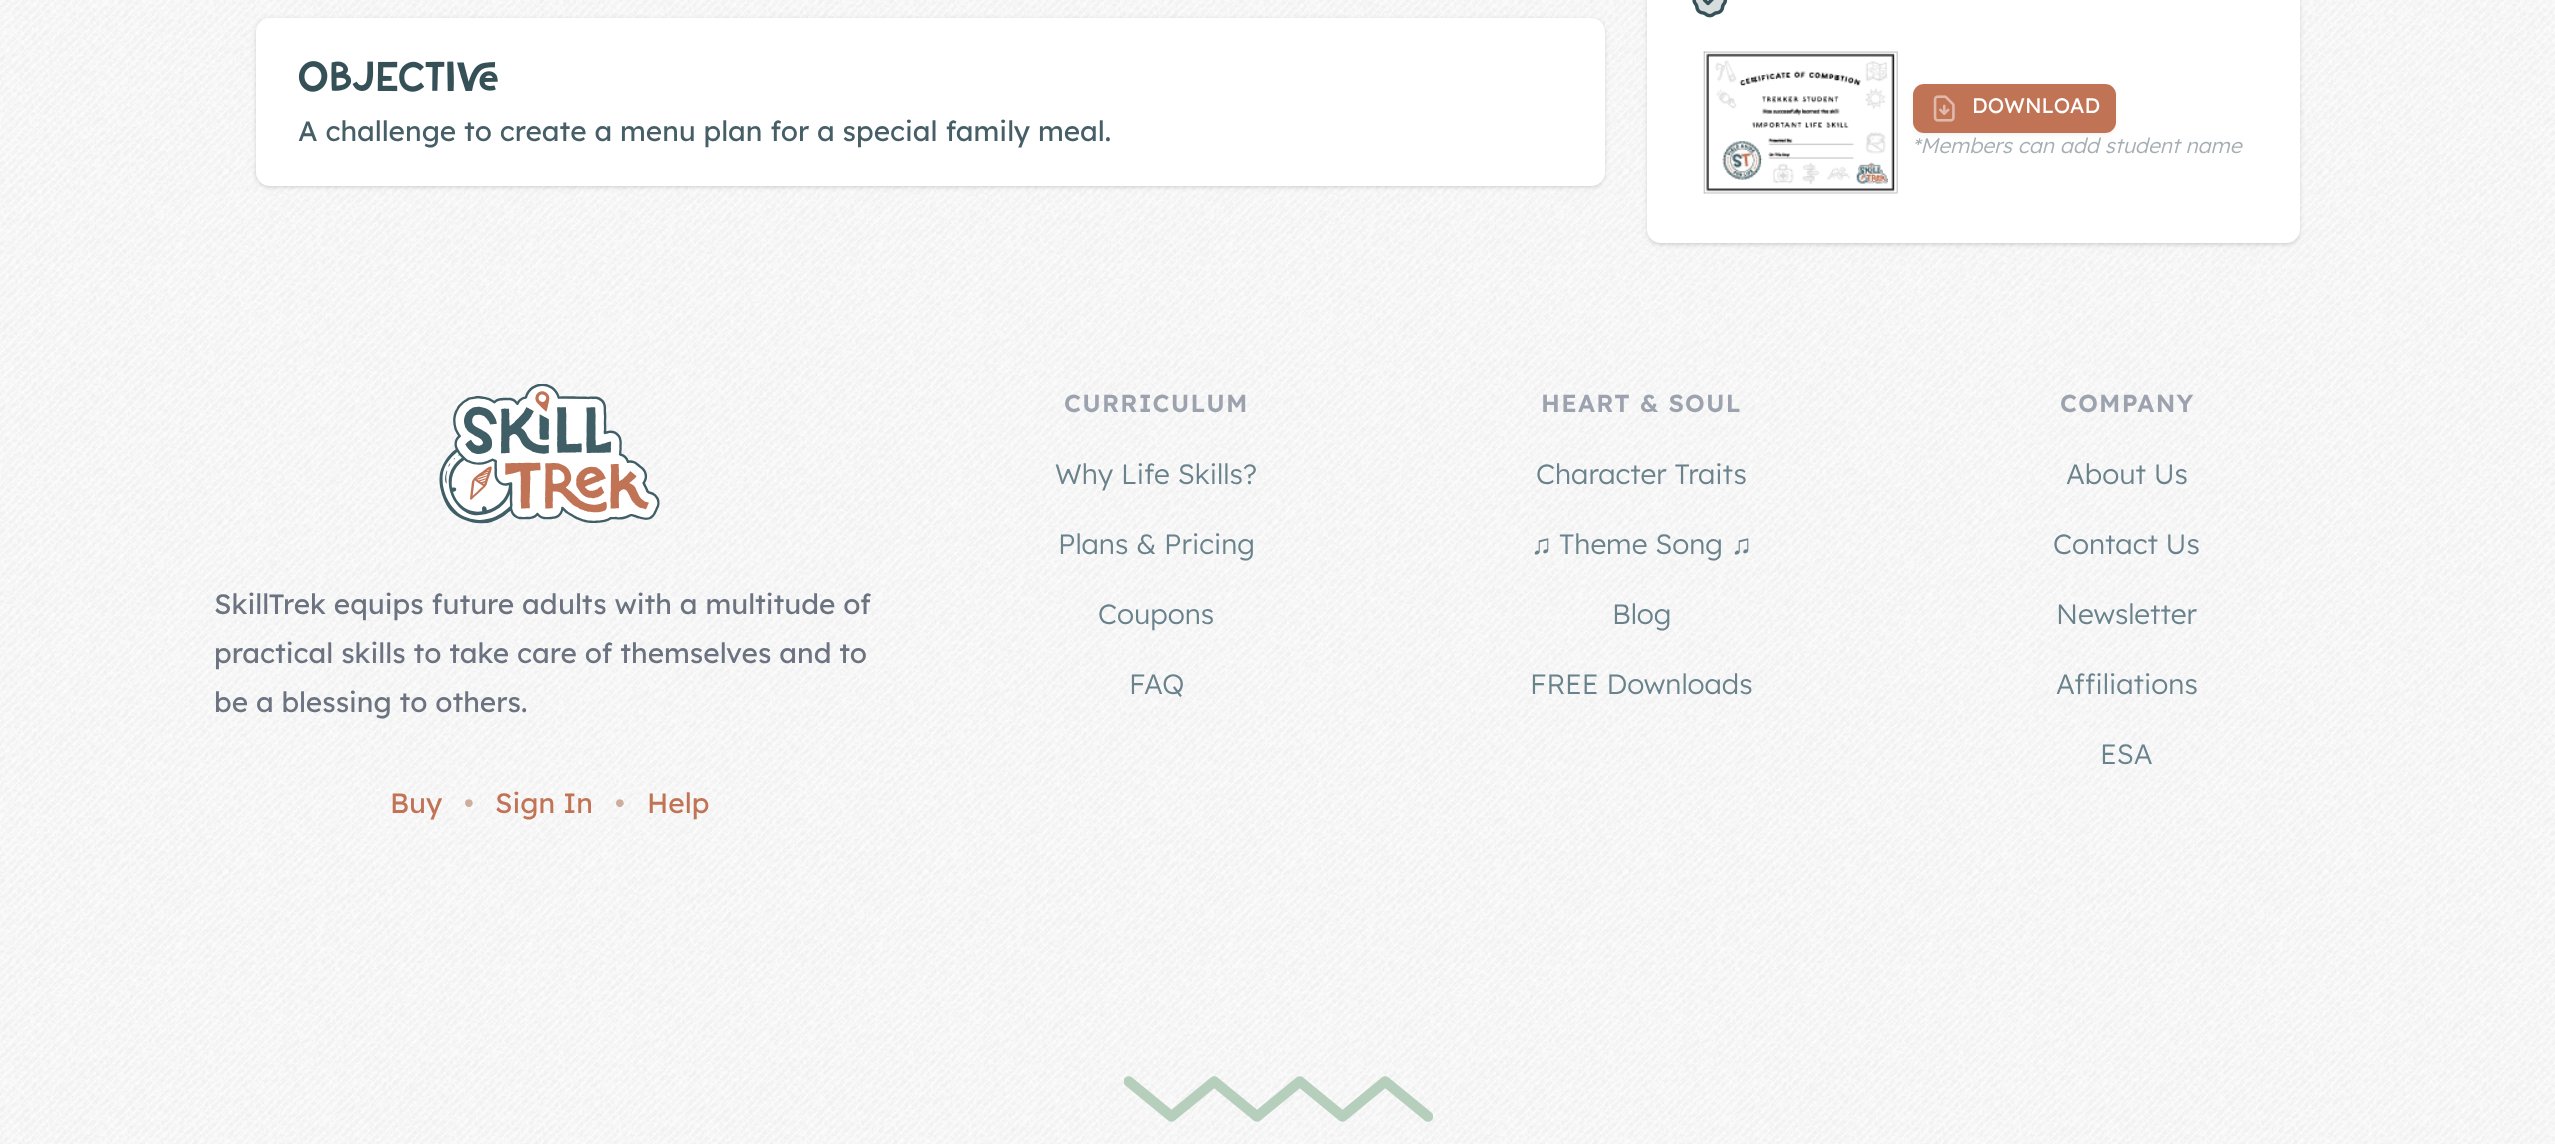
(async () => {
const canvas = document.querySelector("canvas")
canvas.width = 2555
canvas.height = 1144
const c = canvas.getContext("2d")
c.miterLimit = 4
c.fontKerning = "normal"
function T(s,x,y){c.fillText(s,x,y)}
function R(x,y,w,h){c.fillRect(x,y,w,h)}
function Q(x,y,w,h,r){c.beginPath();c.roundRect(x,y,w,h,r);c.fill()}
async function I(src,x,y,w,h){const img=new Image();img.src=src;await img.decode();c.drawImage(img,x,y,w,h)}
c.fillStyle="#fff"
R(0,0,2555,1144)
await I("1.png",0,0,2555,1144)
c.fillStyle="#0000001a"
c.filter="blur(2px)"
c.beginPath()
c.roundRect(257,21,1346,165,12)
c.fill()
c.filter="none"
c.filter="blur(2.5px)"
c.beginPath()
c.roundRect(256,19,1349,168,14)
c.fill()
c.filter="none"
c.fillStyle="#fff"
Q(256,18,1349,168,14)
await I("2.png",298,61,200,31)
c.font="28px Lexend"
c.fillStyle="#465e66"
T("A challenge to create a menu plan for a special family meal.",298,141)
c.fillStyle="#0000001a"
c.filter="blur(2px)"
c.beginPath()
c.roundRect(1649,-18,649,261,12)
c.fill()
c.filter="none"
c.filter="blur(2.5px)"
c.beginPath()
c.roundRect(1647,-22,653,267,14)
c.fill()
c.filter="none"
c.fillStyle="#fff"
Q(1647,-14,653,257,14)
await I("3.png",1692,0,36,18)
await I("4.png",1703,51,195,143)
c.fillStyle="#0000000d"
c.filter="blur(2px)"
c.beginPath()
c.roundRect(1913,86,203,49,11)
c.fill()
c.filter="none"
c.fillStyle="#c17355"
Q(1913,84,203,49,11)
await I("5.png",1933,95,22,27)
c.font="21px Lexend"
c.fillStyle="#fff"
T("DOWNLOAD",1972,113)
c.font="italic 300 21px Lexend"
c.fillStyle="#a5aeb2"
T("*Members can add student name",1912,153)
await I("6.png",439,384,221,140)
c.font="28px Lexend"
c.fillStyle="#6b7280"
T("SkillTrek equips future adults with a multitude of",214,614)
T("practical skills to take care of themselves and to",214,663)
T("be a blessing to others.",214,712)
c.fillStyle="#c17355"
T("Buy",390,813)
c.fillStyle="#cdae9e"
T("•",464,813)
c.fillStyle="#c17355"
T("Sign In",495,813)
c.fillStyle="#cdae9e"
T("•",615,813)
c.fillStyle="#c17355"
T("Help",647,813)
c.letterSpacing="1.25px"
c.font="600 24.5px Lexend"
c.fillStyle="#9ca3af"
T("CURRICULUM",1064,412)
c.letterSpacing="0px"
c.font="300 28px Lexend"
c.fillStyle="#69828c"
T("Why Life Skills?",1055,484)
T("Plans & Pricing",1058,554)
T("Coupons",1098,624)
T("FAQ",1129,694)
c.letterSpacing="1.25px"
c.font="600 24.5px Lexend"
c.fillStyle="#9ca3af"
T("HEART & SOUL",1541,412)
c.letterSpacing="0px"
c.font="300 28px Lexend"
c.fillStyle="#69828c"
T("Character Traits",1536,484)
c.font="28px Liberation Sans"
T("♫",1531,554)
c.font="300 28px Lexend"
T("Theme Song",1559,554)
c.font="28px Liberation Sans"
T("♫",1731,554)
c.font="300 28px Lexend"
T("Blog",1612,624)
T("FREE Downloads",1530,694)
c.letterSpacing="1.25px"
c.font="600 24.5px Lexend"
c.fillStyle="#9ca3af"
T("COMPANY",2060,412)
c.letterSpacing="0px"
c.font="300 28px Lexend"
c.fillStyle="#69828c"
T("About Us",2066,484)
T("Contact Us",2053,554)
T("Newsletter",2056,624)
T("Affiliations",2056,694)
T("ESA",2100,764)
await I("7.png",1124,1076,309,46)
})()
